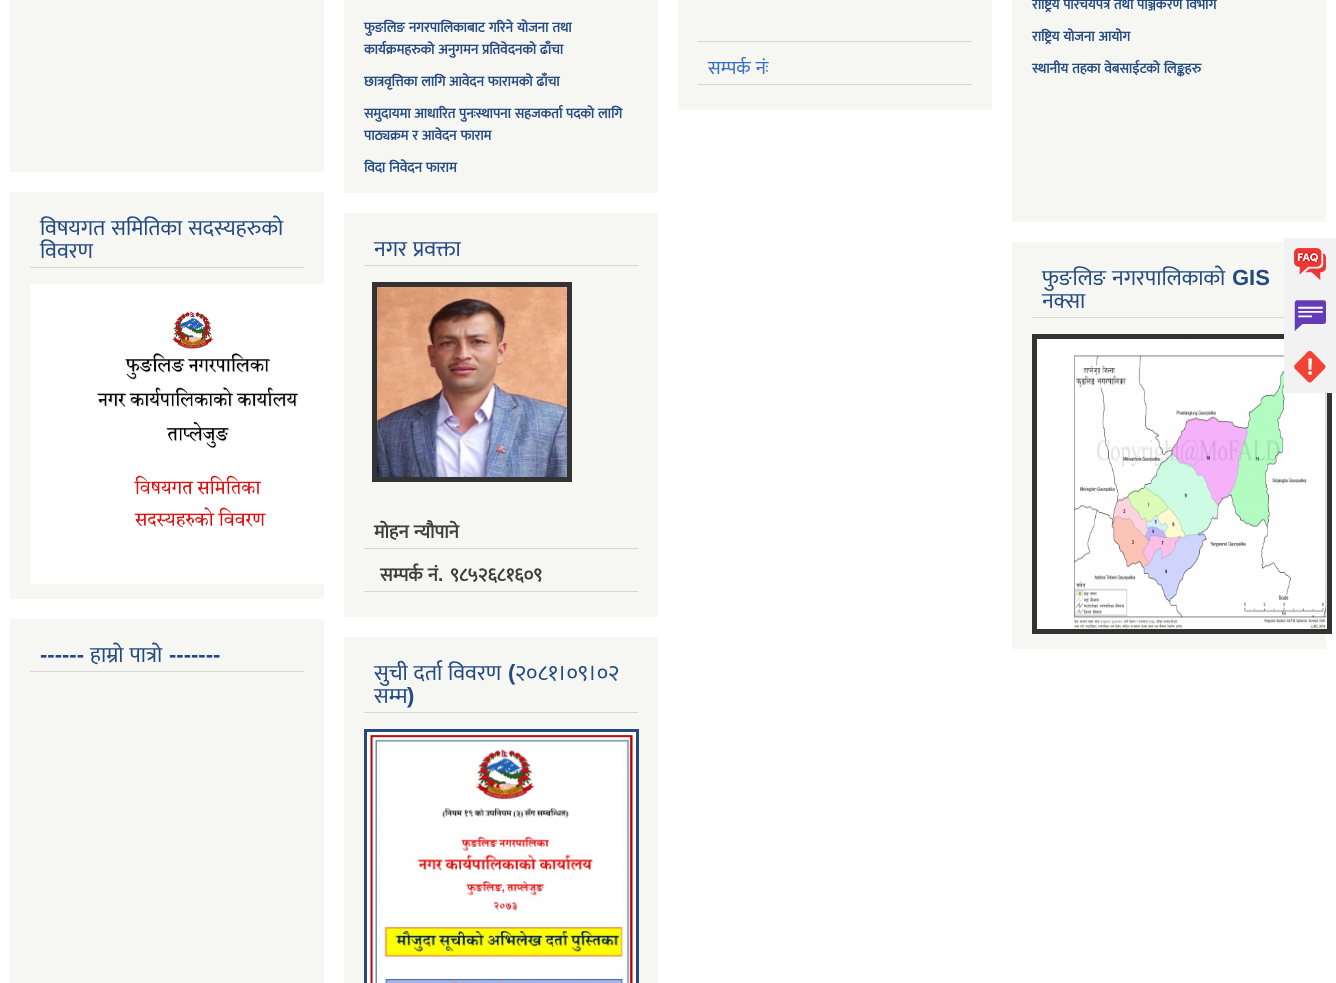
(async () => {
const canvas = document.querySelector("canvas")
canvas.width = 1336
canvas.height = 983
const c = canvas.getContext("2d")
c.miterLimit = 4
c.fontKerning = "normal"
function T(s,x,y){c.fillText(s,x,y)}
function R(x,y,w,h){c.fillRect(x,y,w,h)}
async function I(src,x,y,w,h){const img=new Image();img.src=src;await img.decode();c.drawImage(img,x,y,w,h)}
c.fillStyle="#fff"
R(0,0,1336,983)
c.fillStyle="#f6f6f2"
R(344,0,314,193)
c.wordSpacing="0.75px"
c.font="bold 14px Mukta"
c.fillStyle="#234a83"
T("फुङलिङ नगरपालिकाबाट गरिने योजना तथा",364,32)
T("कार्यक्रमहरुको अनुगमन प्रतिवेदनको ढाँचा",364,54)
T("छात्रवृत्तिका लागि आवेदन फारामको ढाँचा",364,86)
T("समुदायमा आधारित पुनःस्थापना सहजकर्ता पदको लागि",364,118)
T("पाठ्यक्रम र आवेदन फाराम",364,140)
T("विदा निवेदन फाराम",364,172)
c.fillStyle="#f6f6f2"
R(344,213,314,404)
c.fillStyle="#d6d6d6"
R(364,265,274,1)
c.wordSpacing="1px"
c.font="22px Mukta"
c.fillStyle="#234a83"
T("नगर प्रवक्ता",374,256)
c.strokeStyle="#333"
c.lineWidth=5
c.strokeRect(374.5,284.5,195,195)
await I("1.png",377,287,190,190)
c.fillStyle="#d6d6d6"
R(364,548,274,1)
c.font="bold 19px Mukta"
c.fillStyle="#3d3d3d"
T("मोहन न्यौपाने",374,538)
c.fillStyle="#d6d6d6"
R(364,591,274,1)
c.fillStyle="#3d3d3d"
T("सम्पर्क नं",380,581)
c.wordSpacing="0px"
c.font="bold 19px Liberation Sans"
T(".",438,581)
c.font="bold 19px Mukta"
T("९८५२६८१६०९",450,581)
c.fillStyle="#f6f6f2"
R(344,637,314,346)
c.fillStyle="#d6d6d6"
R(364,712,274,1)
c.wordSpacing="1px"
c.font="22px Mukta"
c.fillStyle="#234a83"
T("सुची दर्ता विवरण",374,680)
c.wordSpacing="0px"
c.font="bold 22px Liberation Sans"
T("(",508,680)
c.font="22px Mukta"
T("२०८१।०९।०२",515,680)
T("सम्म",374,703)
c.font="bold 22px Liberation Sans"
T(")",407,703)
c.strokeStyle="#234a83"
c.lineWidth=3
c.strokeRect(365.5,730.5,272,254)
await I("2.png",367,732,269,251)
c.fillStyle="#f6f6f2"
R(678,0,314,110)
c.fillStyle="#d6d6d6"
R(698,41,274,1)
R(698,84,274,1)
c.wordSpacing="1px"
c.font="19px Mukta"
c.fillStyle="#376fc2"
T("सम्पर्क नंः",708,74)
c.fillStyle="#f6f6f2"
R(1012,0,314,222)
c.wordSpacing="0.75px"
c.font="bold 14px Mukta"
c.fillStyle="#234a83"
T("राष्ट्रिय परिचयपत्र तथा पञ्जिकरण विभाग",1032,9)
T("राष्ट्रिय योजना आयोग",1032,41)
T("स्थानीय तहका वेबसाईटको लिङ्कहरु",1032,73)
c.fillStyle="#f6f6f2"
R(1012,242,314,407)
c.fillStyle="#d6d6d6"
R(1032,317,252,1)
c.wordSpacing="1px"
c.font="22px Mukta"
c.fillStyle="#234a83"
T("फुङलिङ नगरपालिकाको",1042,285)
c.wordSpacing="0px"
c.font="bold 22px Liberation Sans"
T("GIS",1232,285)
c.font="22px Mukta"
T("नक्सा",1042,308)
c.strokeStyle="#333"
c.lineWidth=5
c.strokeRect(1034.5,336.5,295,295)
await I("3.png",1037,339,290,290)
c.fillStyle="#f6f6f2"
R(10,0,314,172)
R(10,192,314,407)
c.fillStyle="#d6d6d6"
R(30,267,274,1)
c.wordSpacing="1px"
c.fillStyle="#234a83"
T("विषयगत समितिका सदस्यहरुको",40,235)
c.wordSpacing="0px"
T("विवरण",40,258)
await I("4.png",30,284,294,300)
c.fillStyle="#f6f6f2"
R(10,619,314,364)
c.fillStyle="#d6d6d6"
R(30,671,274,1)
c.font="bold 22px Liberation Sans"
c.fillStyle="#234a83"
T("------",40,662)
c.wordSpacing="1px"
c.font="22px Mukta"
T("हाम्रो पात्रो",90,662)
c.wordSpacing="0px"
c.font="bold 22px Liberation Sans"
T("-------",169,662)
c.fillStyle="#f2f2f2"
R(1284,238,52,155)
await I("5.png",1294,248,32,32)
await I("6.png",1294,300,32,31)
await I("7.png",1294,351,32,32)
})()
